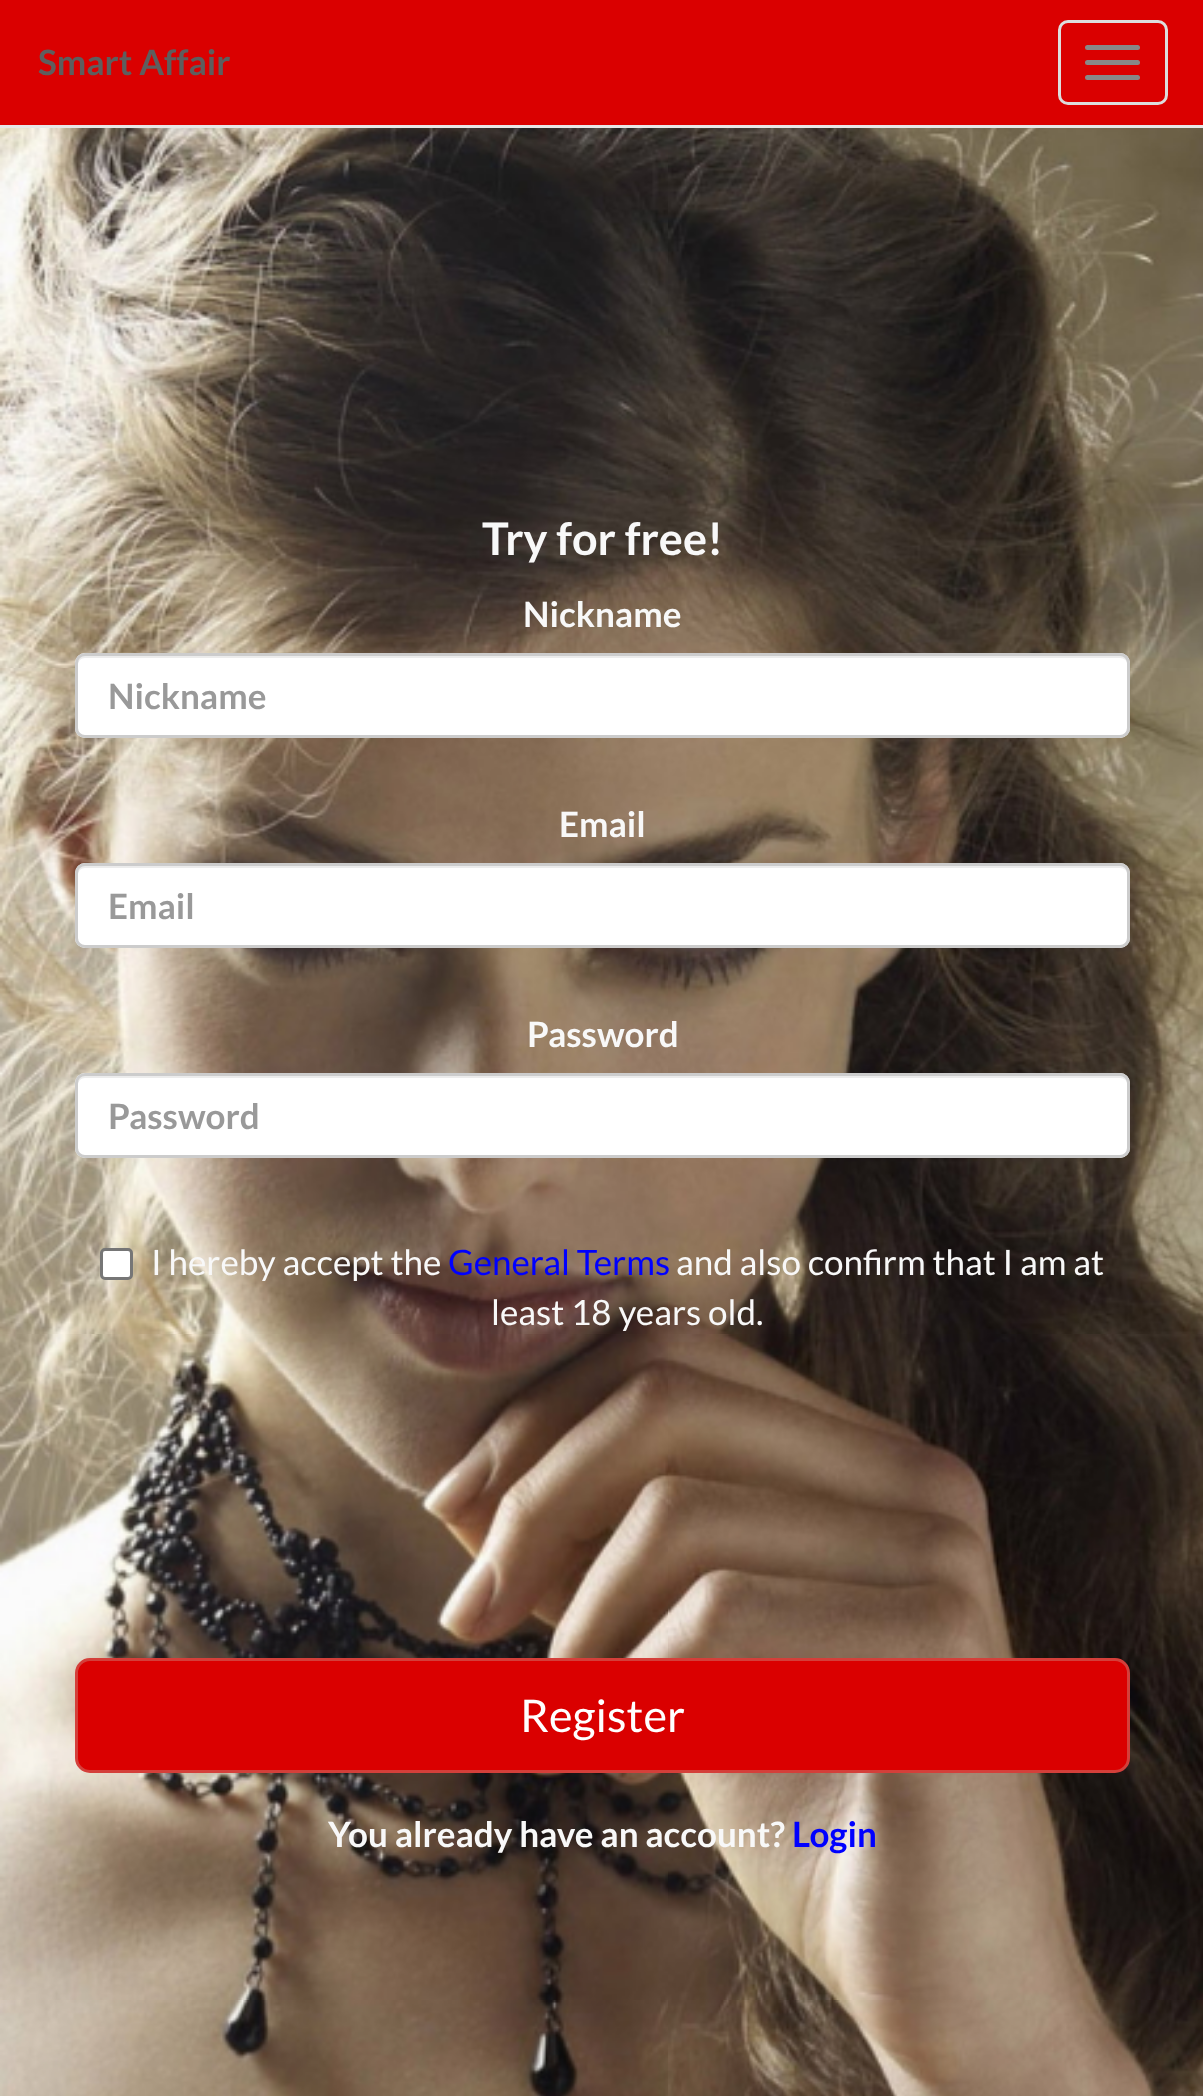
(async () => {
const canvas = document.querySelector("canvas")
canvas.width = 1203
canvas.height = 2096
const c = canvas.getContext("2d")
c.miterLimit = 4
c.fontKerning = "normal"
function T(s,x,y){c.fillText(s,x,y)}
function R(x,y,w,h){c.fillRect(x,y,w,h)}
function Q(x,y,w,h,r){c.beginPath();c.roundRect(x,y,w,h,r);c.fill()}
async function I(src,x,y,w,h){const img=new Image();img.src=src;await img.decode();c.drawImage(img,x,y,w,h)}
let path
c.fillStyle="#fff"
R(0,0,1203,2096)
c.fillStyle="#da0000"
R(0,0,1203,125)
c.fillStyle="#e7e7e7"
R(0,125,1203,3)
c.font="bold 35px Lato"
c.fillStyle="#5e5e5e"
T("Smart Affair",38,75)
c.beginPath()
c.roundRect(1059.5,21.5,107,82,8.5)
c.strokeStyle="#ddd"
c.lineWidth=3
c.stroke()
c.fillStyle="#888"
Q(1085,45,55,5,2.5)
Q(1085,60,55,5,2.5)
Q(1085,75,55,5,2.5)
await I("1.png",0,128,1203,1968)
c.font="bold 45px Lato"
c.fillStyle="#f8f8f8"
T("Try for free!",482,555)
c.font="bold 35px Lato"
T("Nickname",523,627)
c.fillStyle="#fff"
Q(75,653,1055,85,10)
c.fillStyle="#ececec"
path = new Path2D("M85 658h1035c4 0 8 3 8 7v-2c0-4-4-8-8-8h-1034c-4 0-8 4-8 8v2c0-4 3-7 7-7z")
c.fill(path)
c.beginPath()
c.roundRect(76.5,654.5,1052,82,8.5)
c.strokeStyle="#ccc"
c.stroke()
c.fillStyle="#999"
T("Nickname",108,709)
c.fillStyle="#f8f8f8"
T("Email",559,837)
c.fillStyle="#fff"
Q(75,863,1055,85,10)
c.fillStyle="#ececec"
path = new Path2D("M85 868h1035c4 0 8 3 8 7v-2c0-4-4-8-8-8h-1034c-4 0-8 4-8 8v2c0-4 3-7 7-7z")
c.fill(path)
c.beginPath()
c.roundRect(76.5,864.5,1052,82,8.5)
c.stroke()
c.fillStyle="#999"
T("Email",108,919)
c.fillStyle="#f8f8f8"
T("Password",527,1047)
c.fillStyle="#fff"
Q(75,1073,1055,85,10)
c.fillStyle="#ececec"
path = new Path2D("M85 1078h1035c4 0 8 3 8 7v-2c0-4-4-8-8-8h-1034c-4 0-8 4-8 8v2c0-4 3-7 7-7z")
c.fill(path)
c.beginPath()
c.roundRect(76.5,1074.5,1052,82,8.5)
c.stroke()
c.fillStyle="#999"
T("Password",108,1129)
c.fillStyle="#fff"
c.beginPath()
c.roundRect(101.5,1249.5,30,29,3.5)
c.fill()
c.strokeStyle="#767676"
c.stroke()
c.font="35px Lato"
c.fillStyle="#f8f8f8"
T("I hereby accept the",151,1275)
c.fillStyle="#00f"
T("General Terms",448,1275)
c.fillStyle="#f8f8f8"
T("and also confirm that I am at",676,1275)
T("least 18 years old.",491,1325)
c.fillStyle="#da0000"
c.beginPath()
c.roundRect(76.5,1659.5,1052,112,13.5)
c.fill()
c.strokeStyle="#d43f3a"
c.stroke()
c.font="45px Lato"
c.fillStyle="#fff"
T("Register",520,1732)
c.font="bold 35px Lato"
c.fillStyle="#f8f8f8"
T("You already have an account?",328,1847)
c.fillStyle="#00f"
T("Login",792,1847)
})()
